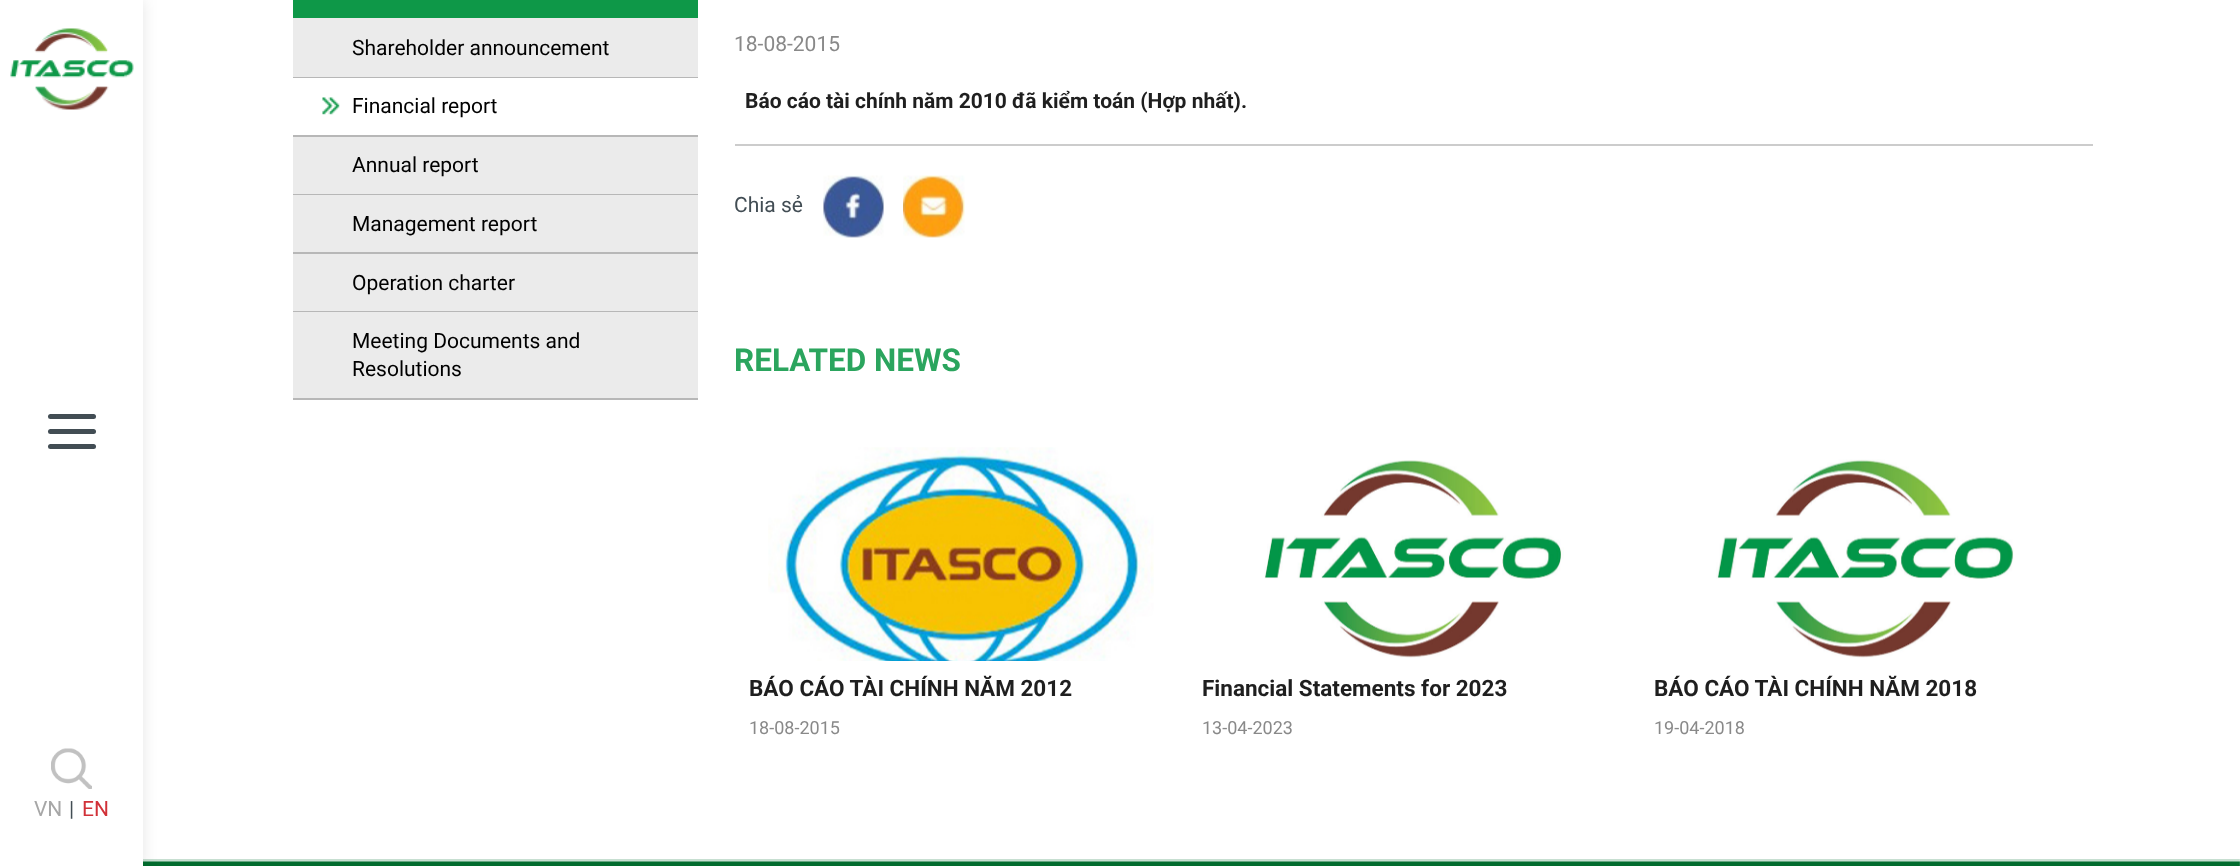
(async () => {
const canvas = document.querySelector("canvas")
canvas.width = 2240
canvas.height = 866
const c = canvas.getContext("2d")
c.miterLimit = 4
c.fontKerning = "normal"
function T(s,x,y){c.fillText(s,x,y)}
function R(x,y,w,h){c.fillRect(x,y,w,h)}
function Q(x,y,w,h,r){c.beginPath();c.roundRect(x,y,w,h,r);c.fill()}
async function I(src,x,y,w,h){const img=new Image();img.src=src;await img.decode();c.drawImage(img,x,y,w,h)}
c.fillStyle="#fff"
R(0,0,2240,866)
c.fillStyle="#0e9848"
R(293,0,405,18)
c.fillStyle="#ebebeb"
R(293,18,405,59)
c.fillStyle="#b7b7b7"
R(293,77,405,1)
c.font="21px Roboto"
c.fillStyle="#000"
T("Shareholder announcement",352,55)
await I("1.png",322,97,18,18)
c.fillStyle="#b7b7b7"
R(293,135,405,2)
c.fillStyle="#000"
T("Financial report",352,113)
c.fillStyle="#ebebeb"
R(293,137,405,57)
c.fillStyle="#b7b7b7"
R(293,194,405,1)
c.fillStyle="#000"
T("Annual report",352,172)
c.fillStyle="#ebebeb"
R(293,195,405,57)
c.fillStyle="#b7b7b7"
R(293,252,405,2)
c.fillStyle="#000"
T("Management report",352,231)
c.fillStyle="#ebebeb"
R(293,254,405,57)
c.fillStyle="#b7b7b7"
R(293,311,405,1)
c.fillStyle="#000"
T("Operation charter",352,290)
c.fillStyle="#ebebeb"
R(293,312,405,86)
c.fillStyle="#b7b7b7"
R(293,398,405,2)
c.fillStyle="#000"
T("Meeting Documents and",352,348)
T("Resolutions",352,376)
c.fillStyle="#898989"
T("18-08-2015",734,51)
c.font="bold 21px Roboto"
c.fillStyle="#1f1f1f"
T("Báo cáo tài chính năm 2010 đã kiểm toán (Hợp nhất).",745,108)
c.fillStyle="#ccc"
R(735,144,1358,2)
c.font="21px Roboto"
c.fillStyle="#424d54"
T("Chia sẻ",734,212)
await I("2.png",823,175,61,63)
await I("3.png",903,175,62,63)
c.font="bold 31.5px Roboto"
c.fillStyle="#2ba55e"
T("RELATED NEWS",734,371)
await I("4.png",768,447,386,214)
c.font="bold 22.5px Roboto"
c.fillStyle="#1f1f1f"
T("BÁO CÁO TÀI CHÍNH NĂM 2012",749,696)
c.font="18px Roboto"
c.fillStyle="#898989"
T("18-08-2015",749,734)
await I("5.png",1264,460,300,198)
c.font="bold 22.5px Roboto"
c.fillStyle="#1f1f1f"
T("Financial Statements for 2023",1202,696)
c.font="18px Roboto"
c.fillStyle="#898989"
T("13-04-2023",1202,734)
await I("6.png",1716,459,298,199)
c.font="bold 22.5px Roboto"
c.fillStyle="#1f1f1f"
T("BÁO CÁO TÀI CHÍNH NĂM 2018",1654,696)
c.font="18px Roboto"
c.fillStyle="#898989"
T("19-04-2018",1654,734)
await I("9.png",143,859,2097,7)
c.fillStyle="#0000001a"
c.filter="blur(7.5px)"
c.beginPath()
c.rect(0,0,143,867)
c.fill()
c.filter="none"
c.fillStyle="#fff"
R(0,0,143,866)
await I("7.png",10,28,124,82)
c.fillStyle="#424d54"
Q(48,429,48,5,2.5)
Q(48,414,48,5,2.5)
Q(48,444,48,5,2.5)
await I("8.png",51,748,41,41)
c.font="21px Roboto"
c.fillStyle="#a7a7a7"
T("VN",34,816)
c.fillStyle="#424d54"
T("|",69,816)
c.fillStyle="#d13138"
T("EN",82,816)
})()
